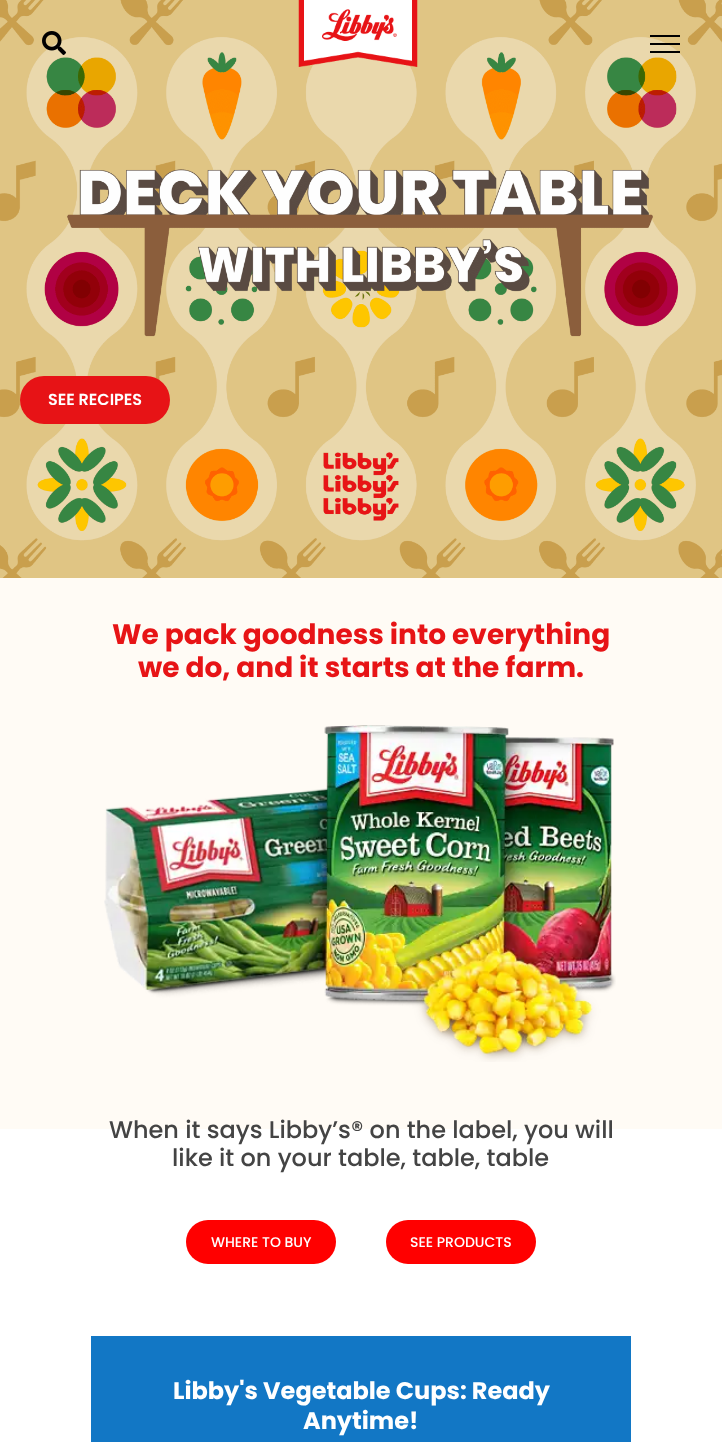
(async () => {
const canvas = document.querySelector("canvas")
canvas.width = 722
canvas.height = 1442
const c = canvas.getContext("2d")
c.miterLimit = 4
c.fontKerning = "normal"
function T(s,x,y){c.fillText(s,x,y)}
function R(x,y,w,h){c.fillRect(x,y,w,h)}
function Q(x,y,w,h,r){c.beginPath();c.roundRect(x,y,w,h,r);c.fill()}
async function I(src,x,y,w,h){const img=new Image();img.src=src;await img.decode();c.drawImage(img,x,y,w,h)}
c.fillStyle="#fff"
R(0,0,722,1442)
await I("3.png",0,0,722,578)
await I("1.png",42,31,24,24)
await I("2.png",298,0,120,67)
c.fillStyle="#000"
R(650,43,30,2)
R(650,35,30,2)
R(650,51,30,2)
c.fillStyle="#e71316"
Q(20,376,150,48,24)
c.font="600 16px Poppins"
c.fillStyle="#fff"
T("SEE RECIPES",48,405)
c.fillStyle="#fffbf5"
R(0,578,722,551)
c.font="bold 28px Poppins"
c.fillStyle="#e71416"
T("We pack goodness into everything",112,644)
T("we do, and it starts at the farm.",138,677)
await I("4.png",104,725,512,337)
c.font="500 24px Poppins"
c.fillStyle="#444"
T("When it says Libby’s® on the label, you will",109,1138)
T("like it on your table, table, table",172,1166)
c.fillStyle="#f00"
Q(186,1220,150,44,22)
c.font="500 14px Poppins"
c.fillStyle="#fff"
T("WHERE TO BUY",211,1247)
c.fillStyle="#f00"
Q(386,1220,150,44,22)
c.fillStyle="#fff"
T("SEE PRODUCTS",410,1247)
c.fillStyle="#1277c5"
R(91,1336,540,106)
c.font="bold 24px Poppins"
c.fillStyle="#fff"
T("Libby's Vegetable Cups: Ready",173,1399)
T("Anytime!",303,1429)
})()
